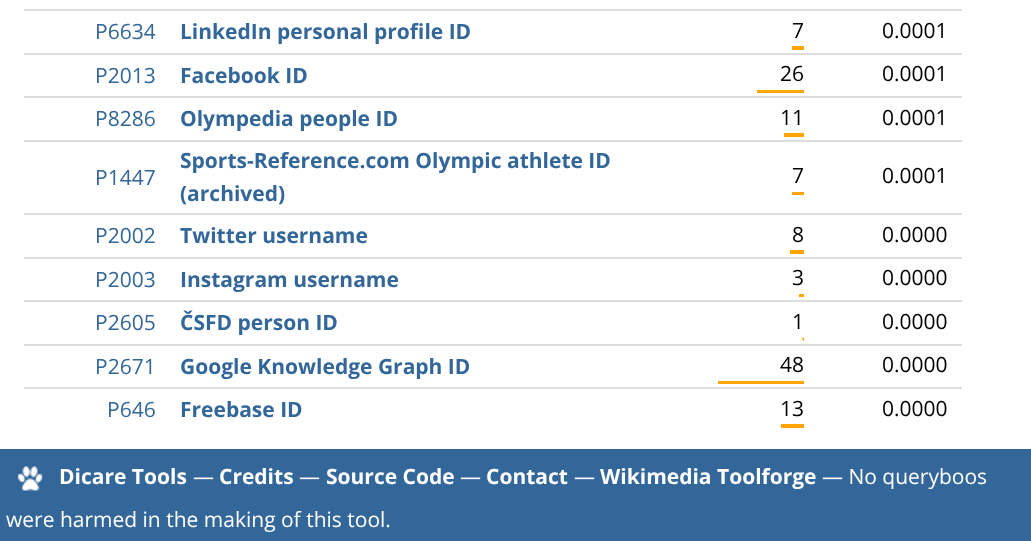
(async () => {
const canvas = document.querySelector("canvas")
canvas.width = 1031
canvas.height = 541
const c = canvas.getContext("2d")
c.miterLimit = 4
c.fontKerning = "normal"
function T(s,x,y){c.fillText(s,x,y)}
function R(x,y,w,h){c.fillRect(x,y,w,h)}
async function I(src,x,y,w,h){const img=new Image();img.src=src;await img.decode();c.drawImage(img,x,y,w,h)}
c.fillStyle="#fff"
R(0,0,1031,541)
c.font="21px Open Sans"
c.fillStyle="#369"
T("P6634",95,39)
c.font="bold 21px Open Sans"
T("LinkedIn personal profile ID",180,39)
c.font="21px Open Sans"
c.fillStyle="#000"
T("7",792,38)
c.fillStyle="#ffa500"
R(792,46,12,4)
c.fillStyle="#ddd"
R(24,9,938,2)
c.fillStyle="#000"
T("0.0001",882,38)
c.fillStyle="#369"
T("P2013",95,83)
c.font="bold 21px Open Sans"
T("Facebook ID",180,83)
c.font="21px Open Sans"
c.fillStyle="#000"
T("26",780,81)
c.fillStyle="#ffa500"
R(757,90,47,3)
c.fillStyle="#ddd"
R(24,53,938,2)
c.fillStyle="#000"
T("0.0001",882,81)
c.fillStyle="#369"
T("P8286",95,126)
c.font="bold 21px Open Sans"
T("Olympedia people ID",180,126)
c.font="21px Open Sans"
c.fillStyle="#000"
T("11",780,125)
c.fillStyle="#ffa500"
R(784,133,20,4)
c.fillStyle="#ddd"
R(24,96,938,2)
c.fillStyle="#000"
T("0.0001",882,125)
c.fillStyle="#369"
T("P1447",95,185)
c.font="bold 21px Open Sans"
T("Sports-Reference.com Olympic athlete ID",180,168)
T("(archived)",180,201)
c.font="21px Open Sans"
c.fillStyle="#000"
T("7",792,183)
c.fillStyle="#ffa500"
R(792,192,12,3)
c.fillStyle="#ddd"
R(24,140,938,2)
c.fillStyle="#000"
T("0.0001",882,183)
c.fillStyle="#369"
T("P2002",95,243)
c.font="bold 21px Open Sans"
T("Twitter username",180,243)
c.font="21px Open Sans"
c.fillStyle="#000"
T("8",792,242)
c.fillStyle="#ffa500"
R(790,250,14,4)
c.fillStyle="#ddd"
R(24,213,938,2)
c.fillStyle="#000"
T("0.0000",882,242)
c.fillStyle="#369"
T("P2003",95,287)
c.font="bold 21px Open Sans"
T("Instagram username",180,287)
c.font="21px Open Sans"
c.fillStyle="#000"
T("3",792,285)
c.fillStyle="#ffa500"
R(799,294,5,3)
c.fillStyle="#ddd"
R(24,257,938,2)
c.fillStyle="#000"
T("0.0000",882,285)
c.fillStyle="#369"
T("P2605",95,330)
c.font="bold 21px Open Sans"
T("ČSFD person ID",180,330)
c.font="21px Open Sans"
c.fillStyle="#000"
T("1",792,329)
await I("1.png",802,337,2,4)
c.fillStyle="#ddd"
R(24,300,938,2)
c.fillStyle="#000"
T("0.0000",882,329)
c.fillStyle="#369"
T("P2671",95,374)
c.font="bold 21px Open Sans"
T("Google Knowledge Graph ID",180,374)
c.font="21px Open Sans"
c.fillStyle="#000"
T("48",780,372)
c.fillStyle="#ffa500"
R(718,381,86,3)
c.fillStyle="#ddd"
R(24,344,938,2)
c.fillStyle="#000"
T("0.0000",882,372)
c.fillStyle="#369"
T("P646",107,417)
c.font="bold 21px Open Sans"
T("Freebase ID",180,417)
c.font="21px Open Sans"
c.fillStyle="#000"
T("13",780,416)
c.fillStyle="#ffa500"
R(781,424,23,4)
c.fillStyle="#ddd"
R(24,387,938,2)
c.fillStyle="#000"
T("0.0000",882,416)
c.fillStyle="#369"
R(0,449,1031,92)
await I("2.png",16,465,28,27)
c.font="bold 21px Open Sans"
c.fillStyle="#fff"
T("Dicare Tools",59,484)
c.font="21px Open Sans"
T("—",193,484)
c.font="bold 21px Open Sans"
T("Credits",219,484)
c.font="21px Open Sans"
T("—",299,484)
c.font="bold 21px Open Sans"
T("Source Code",326,484)
c.font="21px Open Sans"
T("—",460,484)
c.font="bold 21px Open Sans"
T("Contact",486,484)
c.font="21px Open Sans"
T("—",574,484)
c.font="bold 21px Open Sans"
T("Wikimedia Toolforge",600,484)
c.font="21px Open Sans"
T("— No queryboos",822,484)
T("were harmed in the making of this tool.",6,527)
})()
